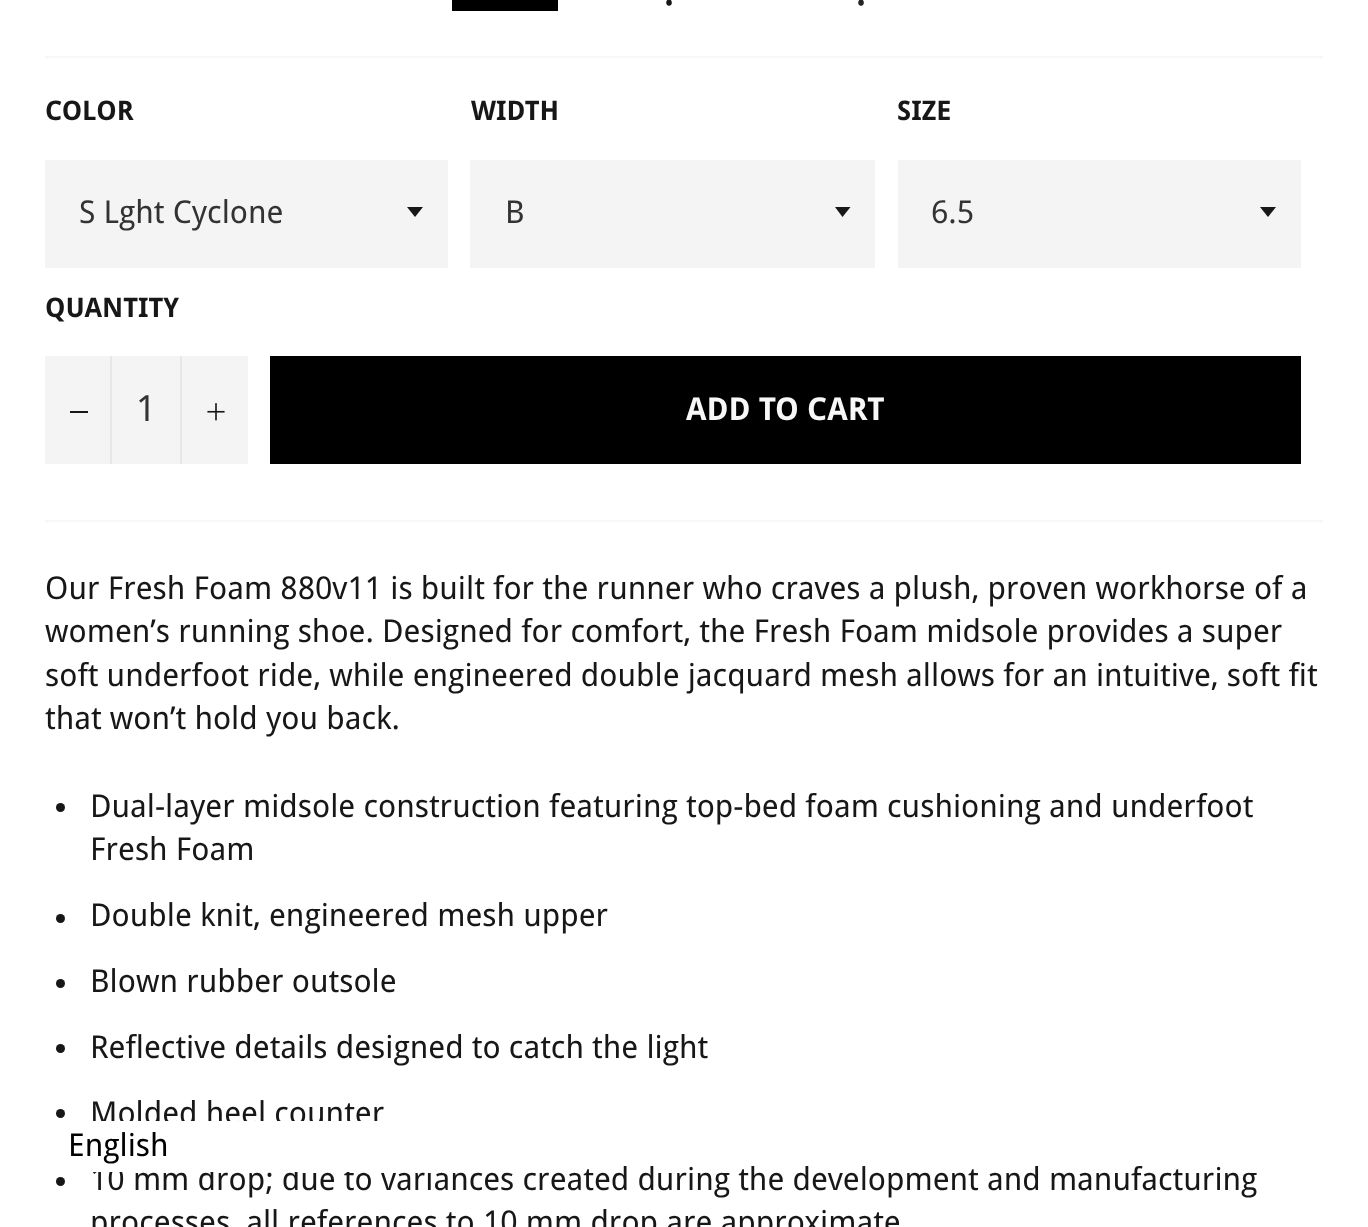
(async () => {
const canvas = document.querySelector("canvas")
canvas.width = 1368
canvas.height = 1227
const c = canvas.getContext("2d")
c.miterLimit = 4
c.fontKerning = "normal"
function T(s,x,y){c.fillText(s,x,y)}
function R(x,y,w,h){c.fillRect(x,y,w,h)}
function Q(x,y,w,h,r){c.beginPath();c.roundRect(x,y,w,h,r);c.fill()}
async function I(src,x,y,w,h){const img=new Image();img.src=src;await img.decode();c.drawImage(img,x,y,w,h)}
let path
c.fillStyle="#fff"
R(0,0,1368,1227)
c.fillStyle="#000"
R(452,0,106,11)
c.font="45px Droid Sans"
c.fillStyle="#181718"
T(".",663,5)
c.fillStyle="#252325"
T(".",855,5)
c.fillStyle="#f7f7f7"
R(45,56,1278,2)
c.font="bold 27px Droid Sans"
c.fillStyle="#181718"
T("COLOR",45,120)
c.fillStyle="#f4f4f4"
R(45,160,403,108)
c.fillStyle="#181718"
path = new Path2D("M407 207l8 10l8-10z")
c.fill(path)
c.font="31.5px Droid Sans"
c.fillStyle="#333"
T("S Lght Cyclone",79,223)
c.font="bold 27px Droid Sans"
c.fillStyle="#181718"
T("WIDTH",471,120)
c.fillStyle="#f4f4f4"
R(470,160,405,108)
c.fillStyle="#181718"
path = new Path2D("M835 207l7.5 10l8-10z")
c.fill(path)
c.font="31.5px Droid Sans"
c.fillStyle="#333"
T("B",505,223)
c.font="bold 27px Droid Sans"
c.fillStyle="#181718"
T("SIZE",897,120)
c.fillStyle="#f4f4f4"
R(898,160,403,108)
c.fillStyle="#181718"
path = new Path2D("M1260 207l8 10l8-10z")
c.fill(path)
c.font="31.5px Droid Sans"
c.fillStyle="#333"
T("6.5",931,223)
c.font="bold 27px Droid Sans"
c.fillStyle="#181718"
T("QUANTITY",45,317)
c.fillStyle="#f4f4f4"
R(45,356,203,108)
c.fillStyle="#e7e7e7"
R(110,356,2,108)
c.fillStyle="#181718"
R(70,411,18,2)
c.font="36px Droid Sans"
c.fillStyle="#333"
T("1",136,421)
c.fillStyle="#e7e7e7"
R(180,356,2,108)
await I("1.png",207,403,18,18)
c.fillStyle="#000"
R(270,356,1031,108)
c.font="bold 31.5px Droid Sans"
c.fillStyle="#f7f7f7"
T("ADD TO CART",686,420)
R(45,520,1278,2)
c.font="31.5px Droid Sans"
c.fillStyle="#181718"
T("Our Fresh Foam 880v11 is built for the runner who craves a plush, proven workhorse of a",45,599)
T("women’s running shoe. Designed for comfort, the Fresh Foam midsole provides a super",45,642)
T("soft underfoot ride, while engineered double jacquard mesh allows for an intuitive, soft fit",45,686)
T("that won’t hold you back.",45,729)
c.beginPath()
c.arc(60.5,807.5,4.5,0,7)
c.fill()
T("Dual-layer midsole construction featuring top-bed foam cushioning and underfoot",90,817)
T("Fresh Foam",90,860)
c.beginPath()
c.arc(60.5,918.5,4.5,0,7)
c.fill()
T("Double knit, engineered mesh upper",90,926)
c.beginPath()
c.arc(60.5,983.5,4.5,0,7)
c.fill()
T("Blown rubber outsole",90,992)
c.beginPath()
c.arc(60.5,1048.5,4.5,0,7)
c.fill()
T("Reflective details designed to catch the light",90,1058)
c.beginPath()
c.arc(60.5,1113.5,4.5,0,7)
c.fill()
T("Molded heel counter",90,1124)
c.beginPath()
c.arc(60.5,1181.5,4.5,0,7)
c.fill()
T("10 mm drop; due to variances created during the development and manufacturing",90,1190)
T("processes, all references to 10 mm drop are approximate",90,1233)
c.fillStyle="#fff"
Q(56,1121,405,51,11)
c.fillStyle="#000"
T("English",68,1156)
})()
